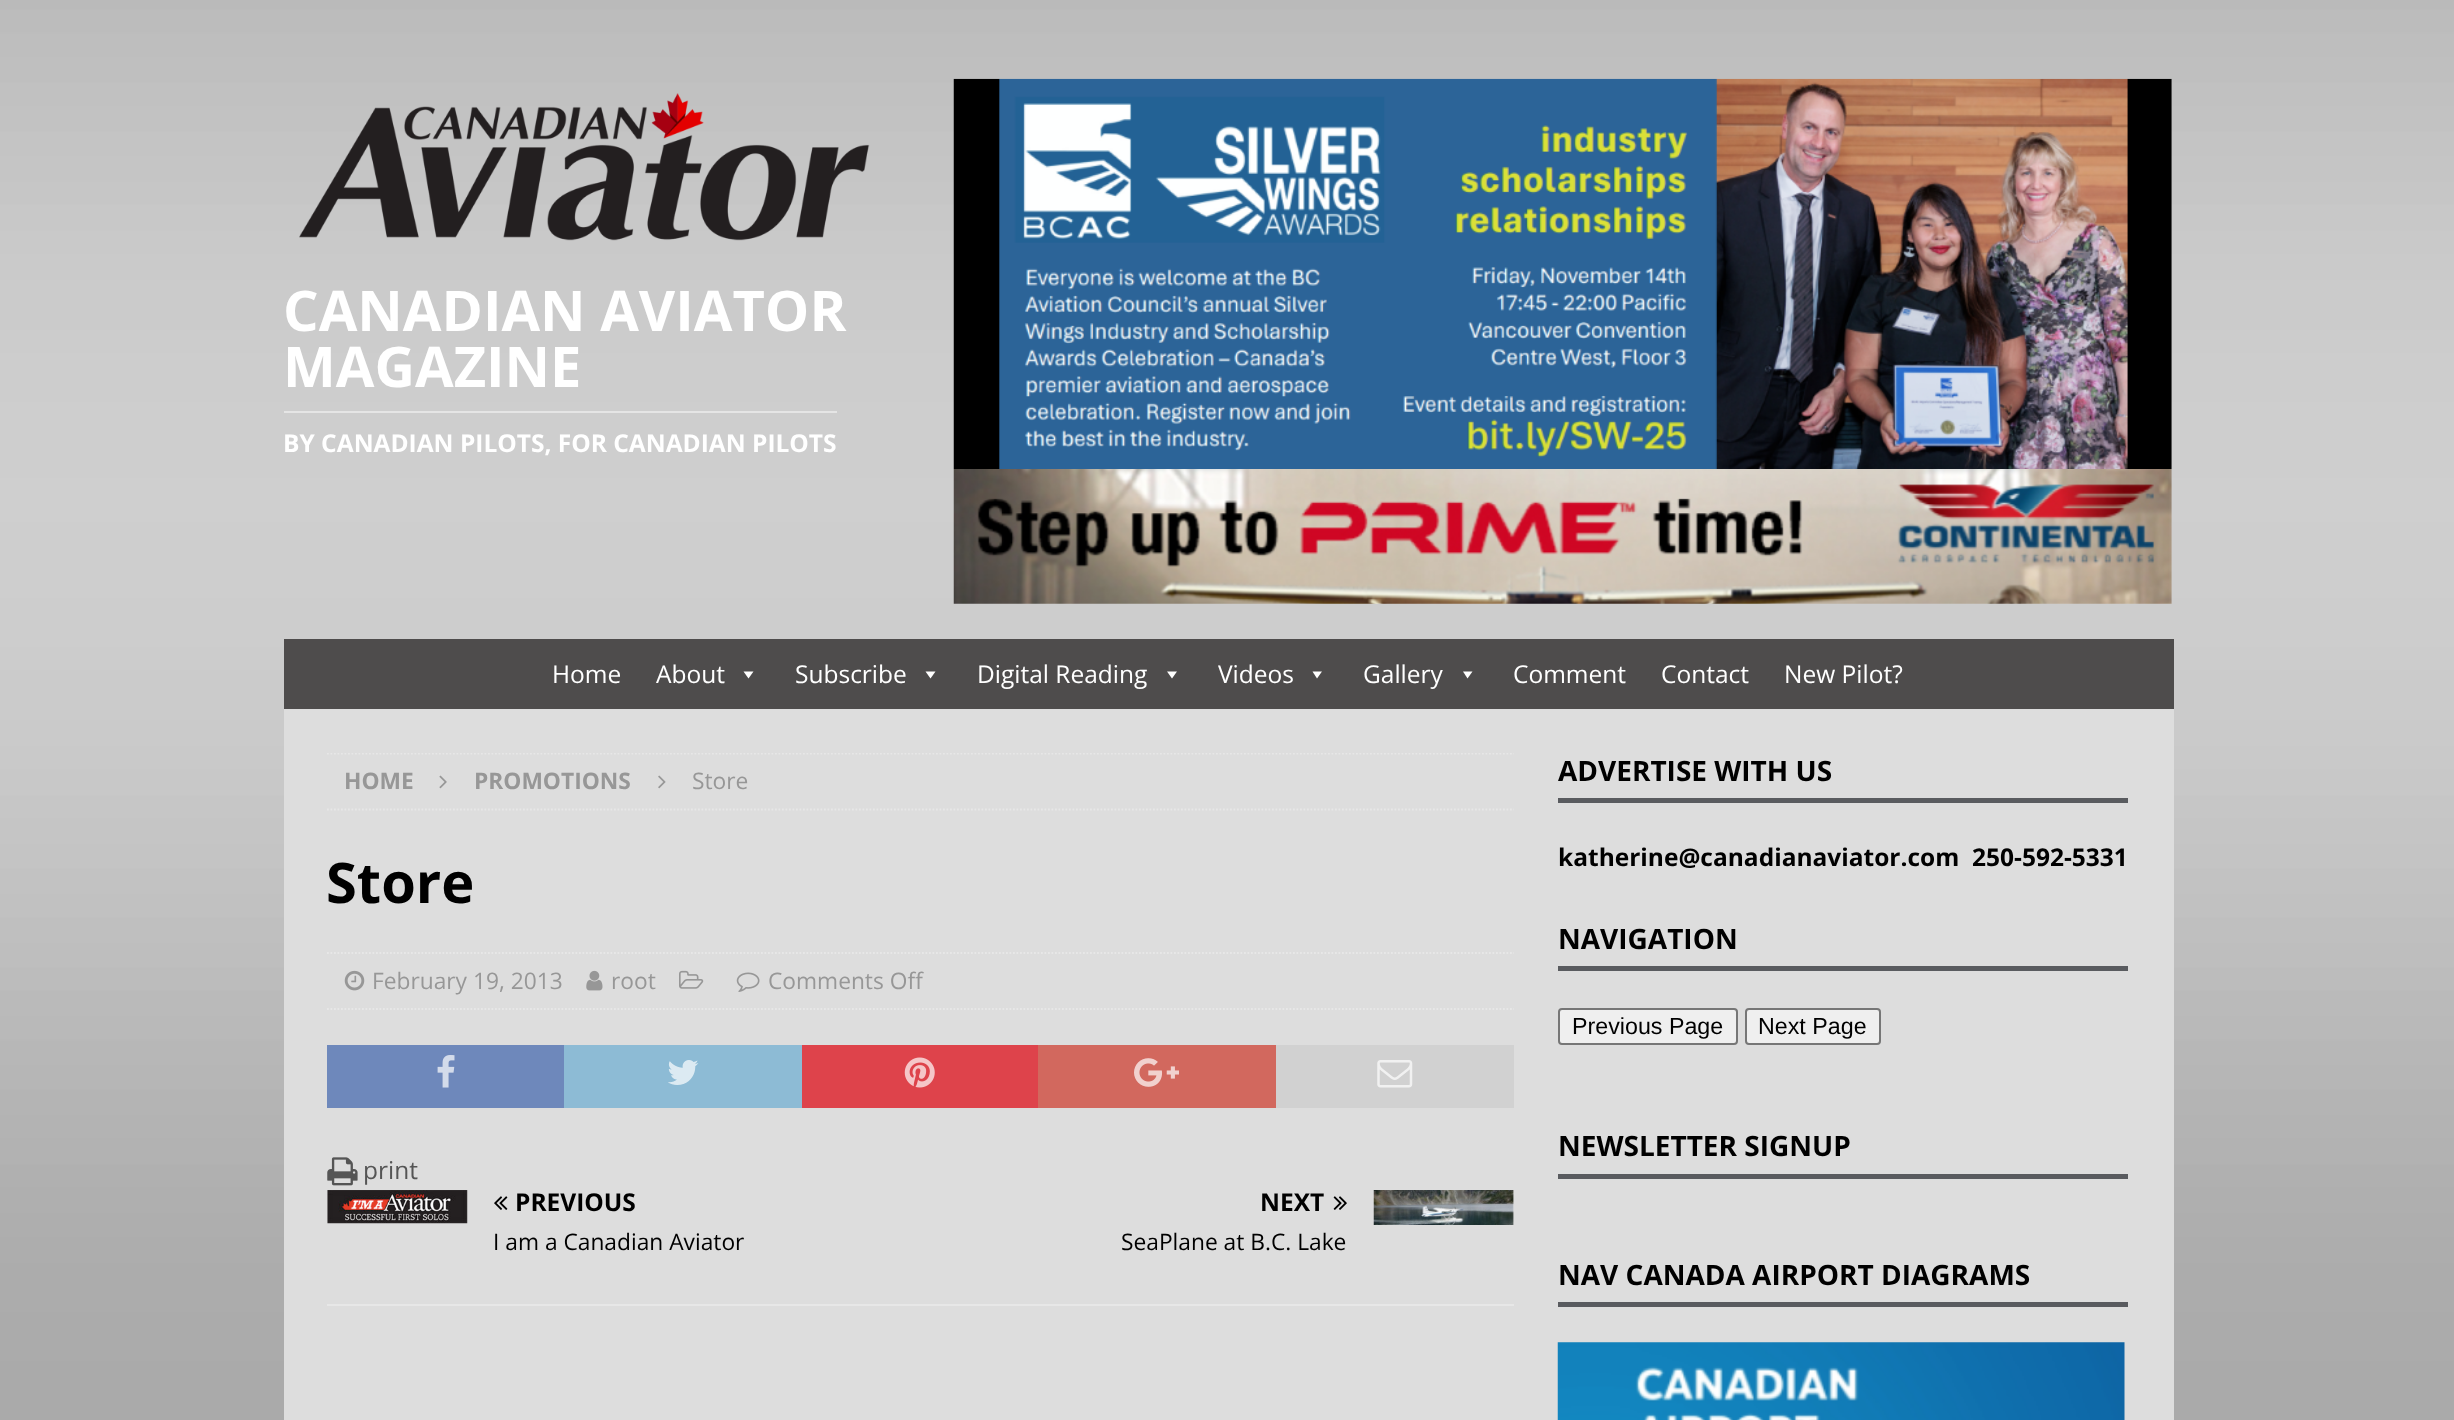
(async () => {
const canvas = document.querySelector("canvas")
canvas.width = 2454
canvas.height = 1420
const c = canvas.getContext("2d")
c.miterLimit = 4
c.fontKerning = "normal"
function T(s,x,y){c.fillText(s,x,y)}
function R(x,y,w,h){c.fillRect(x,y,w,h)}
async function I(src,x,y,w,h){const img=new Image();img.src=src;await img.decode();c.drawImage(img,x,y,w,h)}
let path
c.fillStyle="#fff"
R(0,0,2454,1420)
await I("1.png",0,0,2454,1420)
await I("2.png",299,93,571,148)
c.font="bold 56px Open Sans"
T("CANADIAN AVIATOR",283,331)
T("MAGAZINE",283,387)
c.fillStyle="#e5e5e5"
R(284,411,553,2)
c.font="bold 24.5px Open Sans"
c.fillStyle="#fff"
T("BY CANADIAN PILOTS, FOR CANADIAN PILOTS",283,452)
await I("3.png",953,78,1219,391)
await I("4.png",953,469,1219,135)
c.fillStyle="#4e4c4c"
R(284,639,1890,70)
c.font="24.5px Open Sans"
c.fillStyle="#fff"
T("Home",552,683)
T("About",656,683)
path = new Path2D("M753.5 671.5l-5 7l-5-7z")
c.fill(path)
T("Subscribe",795,683)
path = new Path2D("M935.5 671.5l-5 7l-5-7z")
c.fill(path)
T("Digital Reading",977,683)
path = new Path2D("M1177 671.5l-5 7l-5-7z")
c.fill(path)
T("Videos",1218,683)
path = new Path2D("M1322 671.5l-5 7l-4.5-7z")
c.fill(path)
T("Gallery",1363,683)
path = new Path2D("M1472.5 671.5l-5 7l-4.5-7z")
c.fill(path)
T("Comment",1513,683)
T("Contact",1661,683)
T("New Pilot?",1784,683)
c.fillStyle="#ddd"
R(284,709,1890,711)
c.save()
c.beginPath()
c.rect(327,753,1187,596)
c.clip()
path = new Path2D("M327 753.5h1187")
c.strokeStyle="#e7e7e7"
c.lineWidth=1.8
c.setLineDash([1.75,1.75])
c.stroke(path)
c.restore()
path = new Path2D("M327 809.5h1187")
c.strokeStyle="#e7e7e7"
c.lineWidth=1.8
c.setLineDash([1.75,1.75])
c.stroke(path)
c.font="bold 22.75px Open Sans"
c.fillStyle="#979797"
T("HOME",344,789)
await I("5.png",439,775,8,14)
T("PROMOTIONS",474,789)
await I("6.png",658,775,8,14)
c.font="22.75px Open Sans"
T("Store",692,789)
c.font="bold 56px Open Sans"
c.fillStyle="#000"
T("Store",326,903)
path = new Path2D("M327 953h1187")
c.stroke(path)
path = new Path2D("M327 1009h1187")
c.stroke(path)
await I("7.png",344,970,21,21)
c.font="22.75px Open Sans"
c.fillStyle="#979797"
T("February 19, 2013",372,989)
await I("8.png",586,970,17,21)
T("root",611,989)
await I("9.png",679,970,25,19)
await I("10.png",736,972,24,20)
T("Comments Off",768,989)
c.fillStyle="#6e88bb"
R(327,1045,237,63)
await I("11.png",437,1055,18,33)
c.fillStyle="#8dbbd5"
R(564,1045,238,63)
await I("12.png",668,1060,31,25)
c.fillStyle="#de434b"
R(802,1045,236,63)
await I("13.png",904,1057,31,31)
c.fillStyle="#d2685e"
R(1038,1045,238,63)
await I("14.png",1134,1058,45,29)
c.fillStyle="#d1d1d1"
R(1276,1045,238,63)
await I("15.png",1377,1060,36,28)
await I("16.png",327,1157,31,29)
c.font="24.5px Open Sans"
c.fillStyle="#555"
T("print",363,1179)
c.fillStyle="#e7e7e7"
R(327,1304,1187,2)
await I("17.png",327,1190,141,34)
await I("18.png",494,1196,14,14)
c.font="bold 24.5px Open Sans"
c.fillStyle="#000"
T("PREVIOUS",515,1211)
c.font="22.75px Open Sans"
T("I am a Canadian Aviator",493,1250)
c.font="bold 24.5px Open Sans"
T("NEXT",1260,1211)
await I("19.png",1333,1196,14,14)
await I("20.png",1373,1190,141,35)
c.font="22.75px Open Sans"
T("SeaPlane at B.C. Lake",1121,1250)
c.fillStyle="#595b5f"
R(1558,798,570,5)
c.font="bold 28px Open Sans"
c.fillStyle="#000"
T("ADVERTISE WITH US",1558,781)
c.font="bold 24.5px Open Sans"
T("katherine@canadianaviator.com",1558,866)
T("250-592-5331",1972,866)
c.fillStyle="#595b5f"
R(1558,966,570,5)
c.font="bold 28px Open Sans"
c.fillStyle="#000"
T("NAVIGATION",1558,949)
c.fillStyle="#efefef"
c.beginPath()
c.roundRect(1559,1009,178,35,3)
c.fill()
c.strokeStyle="#767676"
c.lineWidth=2
c.setLineDash([])
c.stroke()
c.font="23.25px Liberation Sans"
c.fillStyle="#000"
T("Previous Page",1572,1034)
c.fillStyle="#efefef"
c.beginPath()
c.roundRect(1746,1009,134,35,3)
c.fill()
c.stroke()
c.fillStyle="#000"
T("Next Page",1758,1034)
c.fillStyle="#595b5f"
R(1558,1174,570,5)
c.font="bold 28px Open Sans"
c.fillStyle="#000"
T("NEWSLETTER SIGNUP",1558,1156)
c.fillStyle="#595b5f"
R(1558,1302,570,5)
c.fillStyle="#000"
T("NAV CANADA AIRPORT DIAGRAMS",1558,1285)
await I("21.png",1557,1342,568,78)
})()
